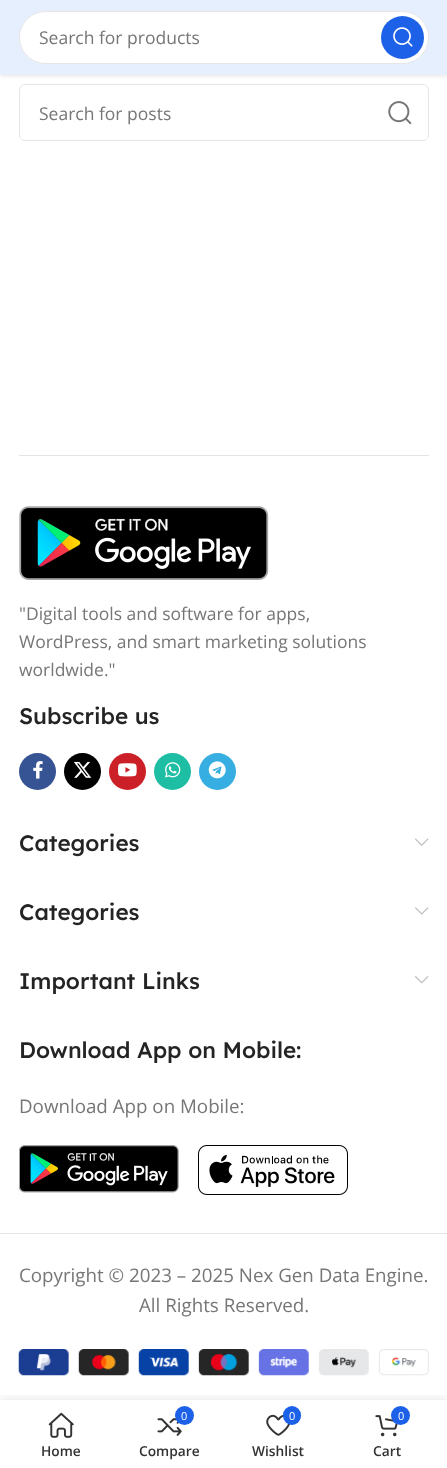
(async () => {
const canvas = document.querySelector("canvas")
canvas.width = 447
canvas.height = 1468
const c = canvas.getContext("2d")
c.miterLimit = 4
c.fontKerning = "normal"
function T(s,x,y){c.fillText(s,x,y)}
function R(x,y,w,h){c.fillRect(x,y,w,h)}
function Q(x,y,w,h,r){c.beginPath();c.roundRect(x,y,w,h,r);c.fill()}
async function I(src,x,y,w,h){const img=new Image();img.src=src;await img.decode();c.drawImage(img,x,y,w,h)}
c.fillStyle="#fff"
R(0,0,447,1468)
c.fillStyle="#0000001a"
c.filter="blur(2px)"
c.beginPath()
c.rect(0,1,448,75)
c.fill()
c.filter="none"
c.fillStyle="#e6effd"
R(0,0,447,75)
c.fillStyle="#fff"
Q(19,11,410,53,26.5)
c.beginPath()
c.roundRect(19.5,11.5,409,52,26)
c.strokeStyle="#0000001a"
c.stroke()
c.font="17.5px Open Sans"
c.fillStyle="#767676"
T("Search for products",39,44)
c.fillStyle="#1c61e7"
c.beginPath()
c.arc(402.5,37.5,21.5,0,7)
c.fill()
await I("1.png",393,27,20,20)
c.beginPath()
c.roundRect(19.5,84.5,409,56,5.5)
c.strokeStyle="#e6e6e6"
c.stroke()
c.fillStyle="#767676"
T("Search for posts",39,120)
await I("2.png",388,101,24,24)
c.fillStyle="#e4e4e4"
R(19,455,410,1)
await I("3.png",19,506,250,74)
c.fillStyle="#767676"
T("\"Digital tools and software for apps,",19,620)
T("WordPress, and smart marketing solutions",19,648)
T("worldwide.\"",19,676)
c.font="500 22.5px Lexend Deca"
c.fillStyle="#242424"
T("Subscribe us",19,724)
c.fillStyle="#365493"
c.beginPath()
c.arc(37.5,771.5,18.5,0,7)
c.fill()
await I("4.png",33,761,10,18)
c.fillStyle="#000"
c.beginPath()
c.arc(82.5,771.5,18.5,0,7)
c.fill()
await I("5.png",74,761,18,17)
c.fillStyle="#cb2027"
c.beginPath()
c.arc(127.5,771.5,18.5,0,7)
c.fill()
await I("6.png",118,763,19,14)
c.fillStyle="#1ebea5"
c.beginPath()
c.arc(172.5,771.5,18.5,0,7)
c.fill()
await I("7.png",165,762,16,16)
c.fillStyle="#37aee2"
c.beginPath()
c.arc(217.5,771.5,18.5,0,7)
c.fill()
await I("8.png",208,761,18,18)
c.fillStyle="#242424"
T("Categories",19,851)
await I("9.png",415,838,14,8)
T("Categories",19,920)
await I("10.png",415,907,14,8)
T("Important Links",19,989)
await I("11.png",415,976,14,8)
T("Download App on Mobile:",19,1058)
c.font="18.75px Open Sans"
c.fillStyle="#767676"
T("Download App on Mobile:",19,1113)
await I("12.png",19,1145,160,48)
await I("13.png",198,1145,150,50)
c.fillStyle="#e4e4e4"
R(0,1233,447,1)
c.fillStyle="#767676"
T("Copyright © 2023 – 2025 Nex Gen Data Engine.",19,1282)
T("All Rights Reserved.",139,1312)
await I("14.png",18,1349,411,27)
c.save()
c.beginPath()
c.rect(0,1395,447,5)
c.clip()
c.fillStyle="#0000001f"
c.filter="blur(5.5px)"
c.beginPath()
c.rect(0,1400,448,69)
c.fill()
c.filter="none"
c.restore()
await I("15.png",48,1412,26,26)
c.font="600 13.75px Open Sans"
c.fillStyle="#333"
T("Home",41,1456)
await I("16.png",157,1418,25,18)
c.fillStyle="#1c61e7"
c.beginPath()
c.arc(184.5,1415.5,9.5,0,7)
c.fill()
c.font="11px Open Sans"
c.fillStyle="#fff"
T("0",181,1420)
c.font="600 13.75px Open Sans"
c.fillStyle="#333"
T("Compare",139,1456)
await I("17.png",266,1414,24,22)
c.fillStyle="#1c61e7"
Q(283,1406,18,19,9)
c.font="11px Open Sans"
c.fillStyle="#fff"
T("0",289,1420)
c.font="600 13.75px Open Sans"
c.fillStyle="#333"
T("Wishlist",252,1456)
await I("18.png",375,1415,23,22)
c.fillStyle="#1c61e7"
c.beginPath()
c.arc(400.5,1415.5,9.5,0,7)
c.fill()
c.font="11px Open Sans"
c.fillStyle="#fff"
T("0",398,1420)
c.font="600 13.75px Open Sans"
c.fillStyle="#333"
T("Cart",373,1456)
})()
